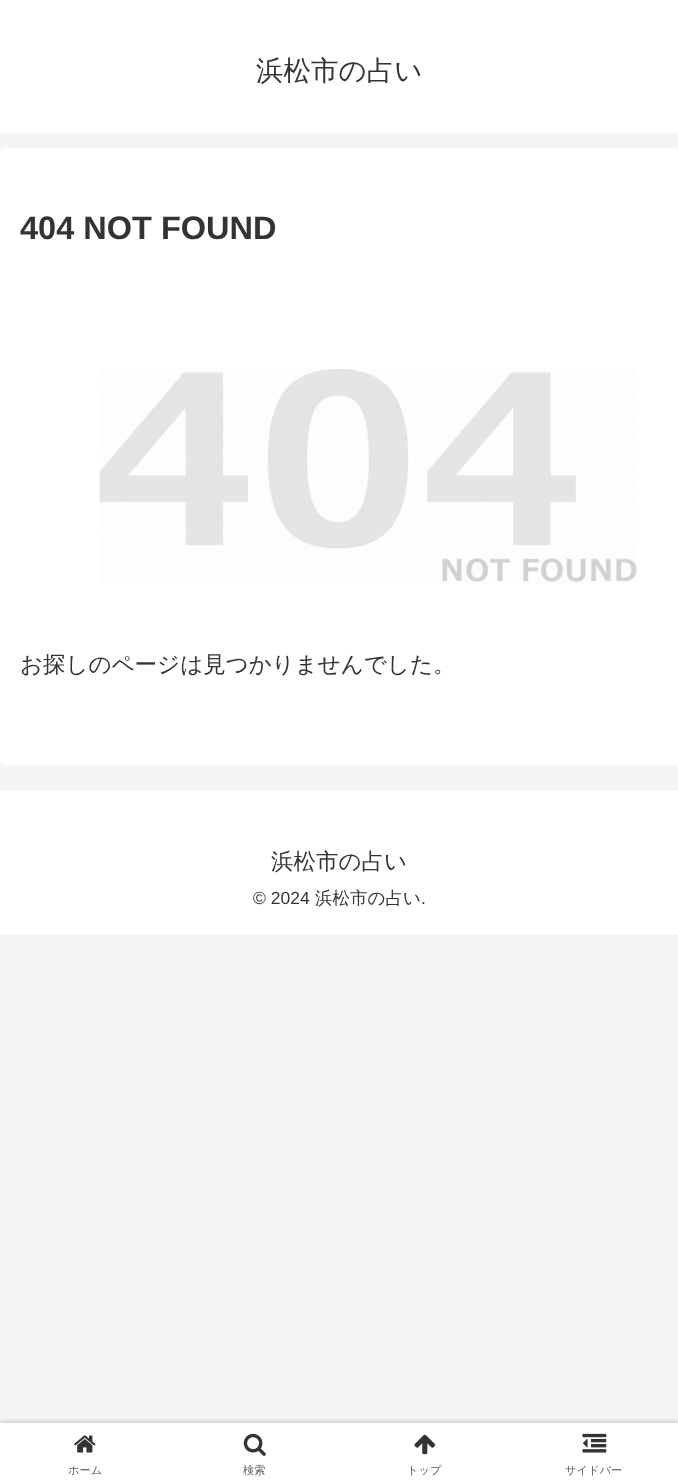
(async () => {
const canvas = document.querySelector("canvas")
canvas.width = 678
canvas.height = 1484
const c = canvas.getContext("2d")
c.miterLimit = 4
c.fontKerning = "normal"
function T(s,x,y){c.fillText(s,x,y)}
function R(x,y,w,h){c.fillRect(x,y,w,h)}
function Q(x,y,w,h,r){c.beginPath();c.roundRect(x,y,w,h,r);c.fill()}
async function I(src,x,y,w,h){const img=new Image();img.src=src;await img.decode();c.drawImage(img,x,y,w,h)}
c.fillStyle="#f4f5f7"
R(0,0,678,1484)
c.fillStyle="#fff"
R(0,0,678,133)
c.font="500 27.5px WenQuanYi Zen Hei"
c.fillStyle="#333"
T("浜松市の占い",256,80)
c.fillStyle="#fff"
Q(0,148,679,617,5)
c.font="bold 32.5px Liberation Sans"
c.fillStyle="#333"
T("404 NOT FOUND",20,239)
await I("1.png",99,368,538,216)
c.font="500 22.5px WenQuanYi Zen Hei"
T("お探しのページは見つかりませんでした。",20,672)
c.fillStyle="#fff"
R(0,790,678,144)
c.fillStyle="#333"
T("浜松市の占い",271,869)
c.font="17.5px Liberation Sans"
T("© 2024",253,904)
c.font="500 17.5px WenQuanYi Zen Hei"
T("浜松市の占い",315,904)
c.font="17.5px Liberation Sans"
T(".",421,904)
c.fillStyle="#a9a9a9"
c.filter="blur(3px)"
c.beginPath()
c.rect(0,1423,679,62)
c.fill()
c.filter="none"
c.fillStyle="#fff"
R(0,1423,678,61)
await I("2.png",74,1435,22,18)
c.font="500 11.25px WenQuanYi Zen Hei"
c.fillStyle="#5c5c5c"
T("ホーム",68,1474)
await I("3.png",243,1433,23,23)
T("検索",243,1474)
await I("4.png",414,1434,22,21)
T("トップ",407,1474)
await I("5.png",582,1433,25,20)
T("サイドバー",565,1474)
})()
